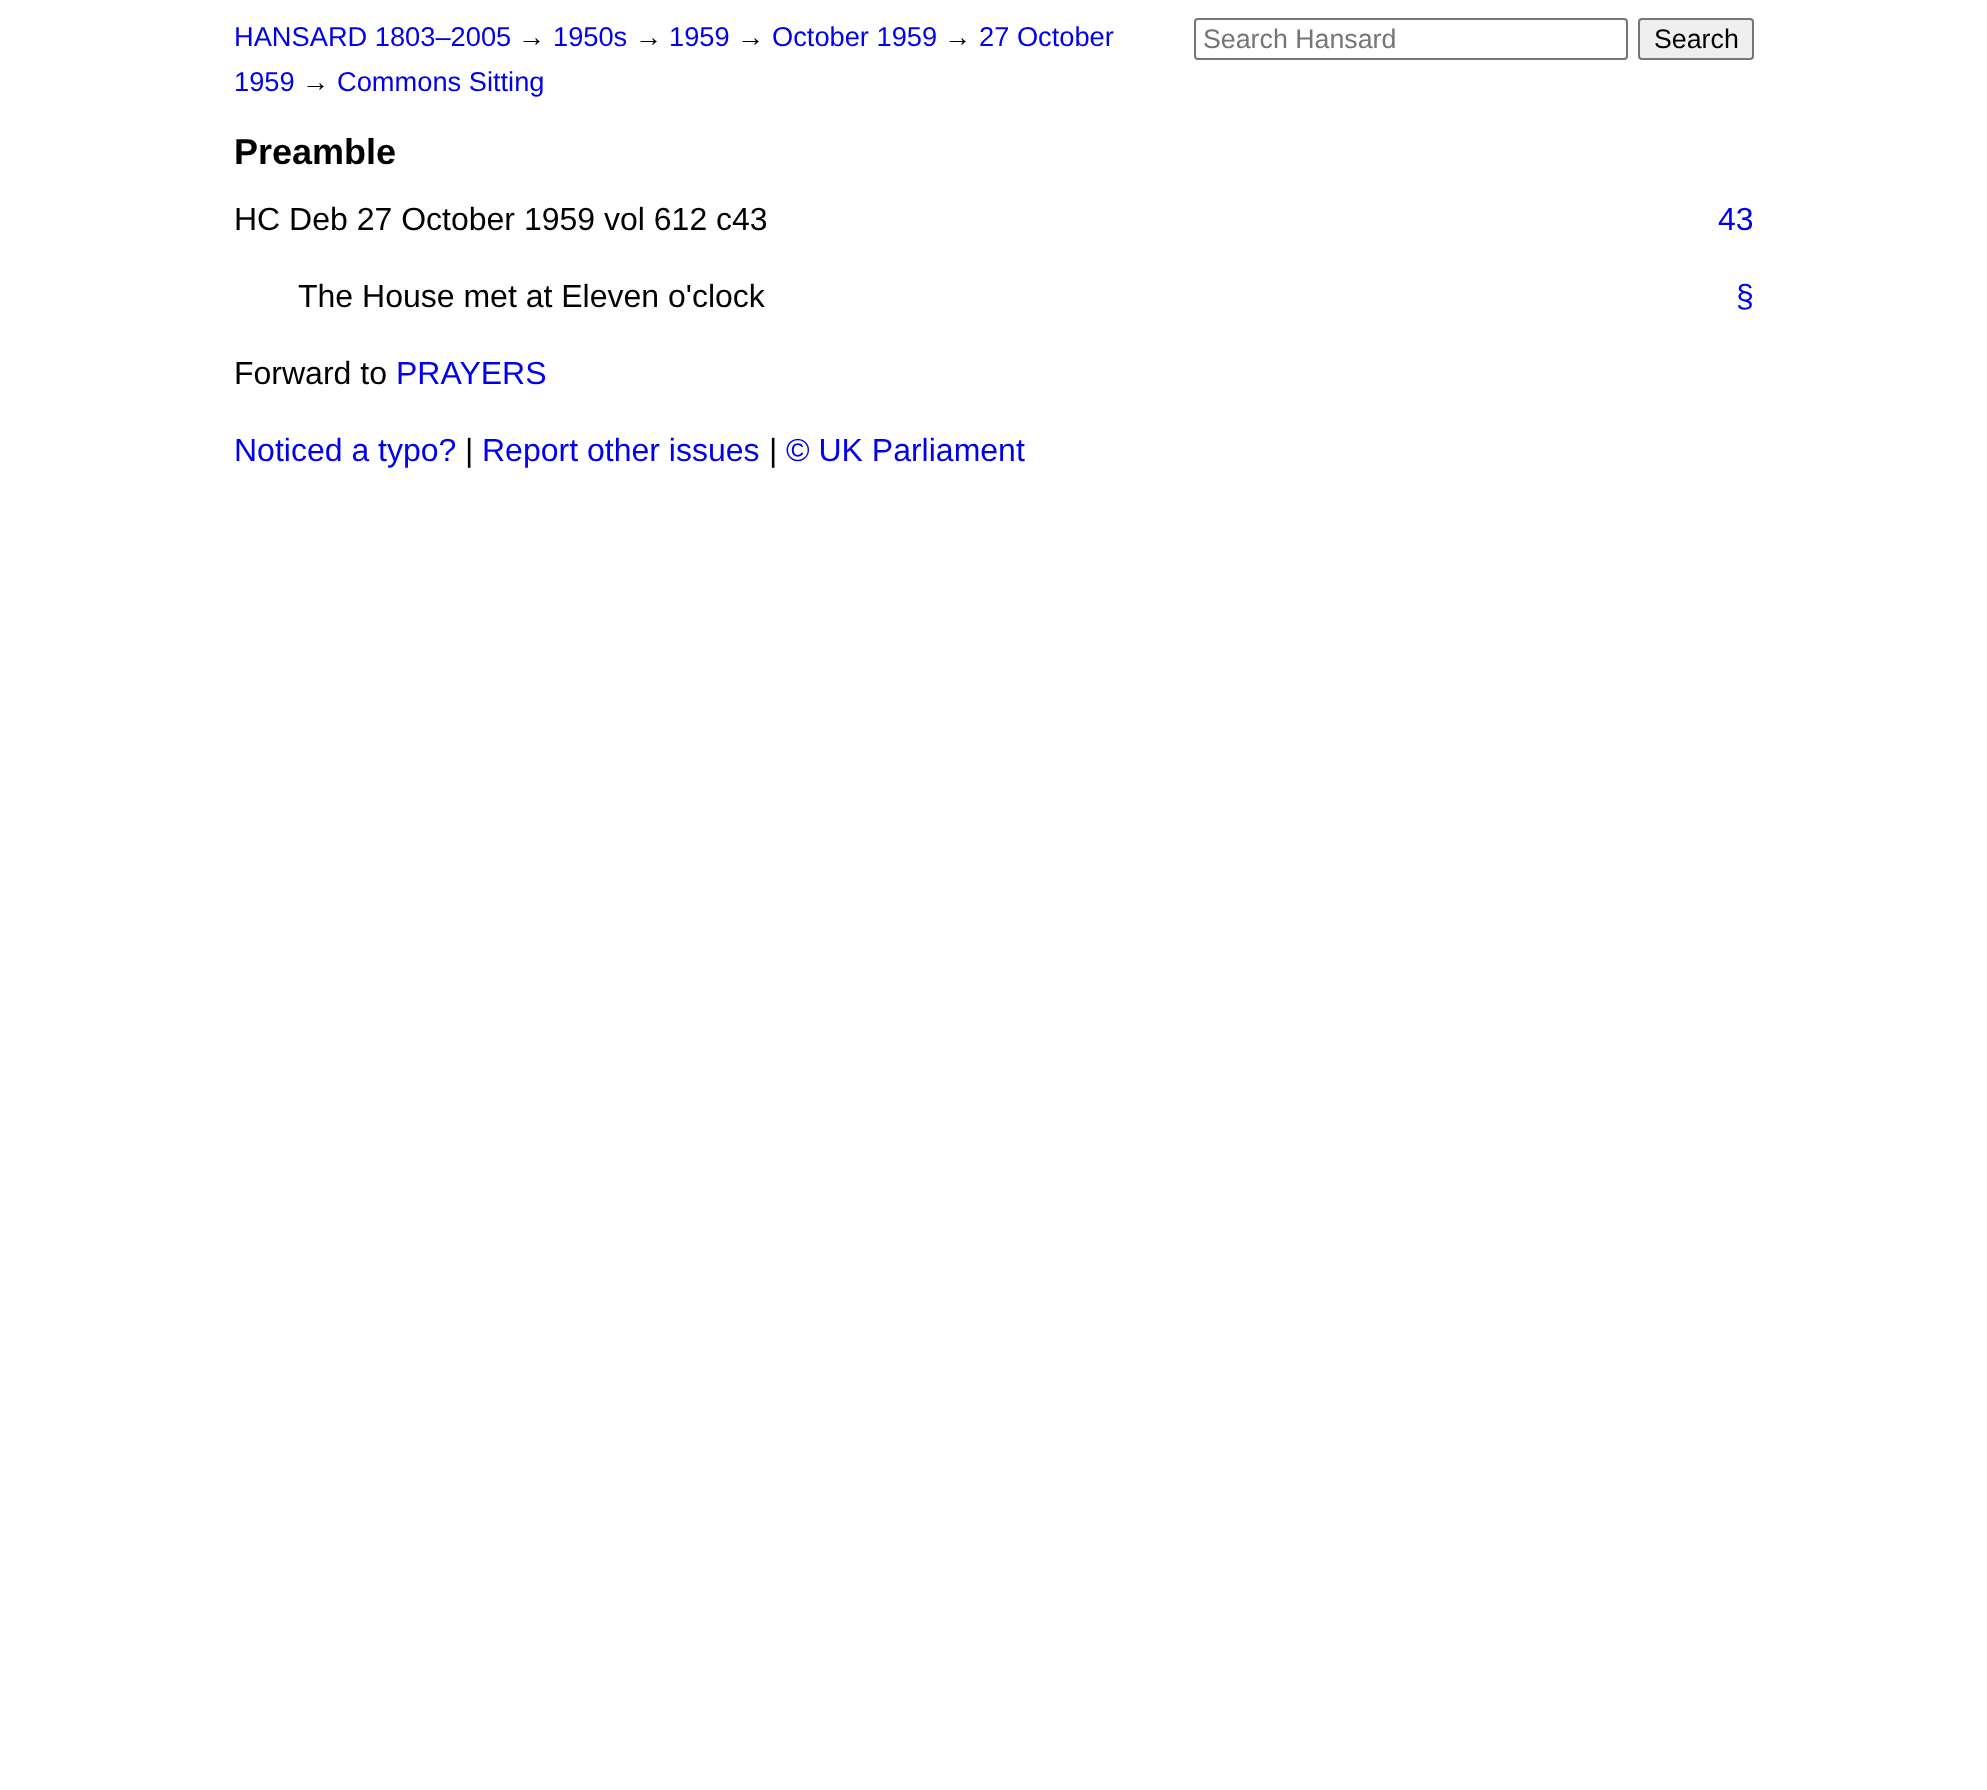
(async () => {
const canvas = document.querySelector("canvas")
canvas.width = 1987
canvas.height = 1790
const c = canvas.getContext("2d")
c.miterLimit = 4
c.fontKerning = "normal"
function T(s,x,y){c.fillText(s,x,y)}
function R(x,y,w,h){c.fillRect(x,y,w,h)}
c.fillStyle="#fff"
R(0,0,1987,1790)
c.font="27.25px Liberation Sans"
c.fillStyle="#00e"
T("HANSARD 1803–2005",234,46)
c.fillStyle="#000"
T("→",518,46)
c.fillStyle="#00e"
T("1950s",553,46)
c.fillStyle="#000"
T("→",635,46)
c.fillStyle="#00e"
T("1959",669,46)
c.fillStyle="#000"
T("→",737,46)
c.fillStyle="#00e"
T("October 1959",772,46)
c.fillStyle="#000"
T("→",944,46)
c.fillStyle="#00e"
T("27 October",979,46)
T("1959",234,91)
c.fillStyle="#000"
T("→",302,91)
c.fillStyle="#00e"
T("Commons Sitting",337,91)
c.beginPath()
c.roundRect(1195,19,432,40,3)
c.strokeStyle="#767676"
c.lineWidth=2
c.stroke()
c.font="26.75px Liberation Sans"
c.fillStyle="#757575"
T("Search Hansard",1203,48)
c.fillStyle="#efefef"
c.beginPath()
c.roundRect(1639,19,114,40,3)
c.fill()
c.stroke()
c.fillStyle="#000"
T("Search",1654,48)
c.font="bold 36px Liberation Sans"
T("Preamble",234,164)
c.font="32px Liberation Sans"
T("HC Deb 27 October 1959 vol 612 c43",234,230)
c.fillStyle="#00e"
T("43",1718,230)
c.fillStyle="#000"
T("The House met at Eleven o'clock",298,307)
c.fillStyle="#00e"
T("§",1736,307)
c.fillStyle="#000"
T("Forward to",234,384)
c.fillStyle="#00e"
T("PRAYERS",396,384)
T("Noticed a typo?",234,461)
c.fillStyle="#000"
T("|",465,461)
c.fillStyle="#00e"
T("Report other issues",482,461)
c.fillStyle="#000"
T("|",769,461)
c.fillStyle="#00e"
T("© UK Parliament",786,461)
})()
